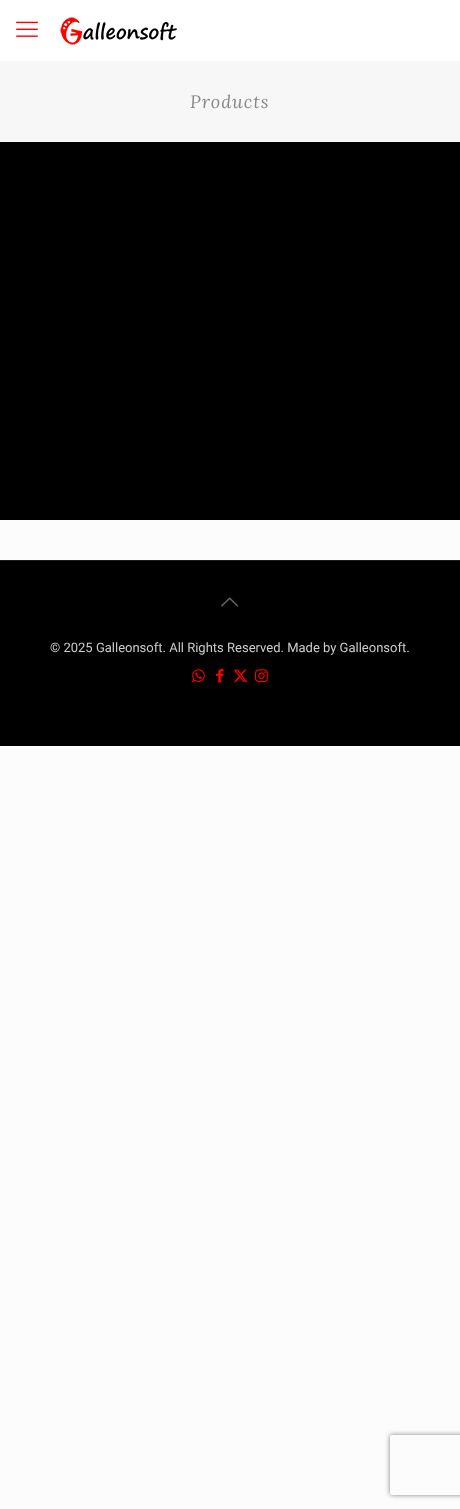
(async () => {
const canvas = document.querySelector("canvas")
canvas.width = 460
canvas.height = 1509
const c = canvas.getContext("2d")
c.miterLimit = 4
c.fontKerning = "normal"
function T(s,x,y){c.fillText(s,x,y)}
function R(x,y,w,h){c.fillRect(x,y,w,h)}
async function I(src,x,y,w,h){const img=new Image();img.src=src;await img.decode();c.drawImage(img,x,y,w,h)}
let path
c.fillStyle="#fcfcfc"
R(0,0,460,1509)
c.fillStyle="#000"
R(0,142,460,378)
c.fillStyle="#fff"
R(0,0,460,61)
await I("1.png",16,21,22,16)
await I("2.png",60,17,117,28)
c.fillStyle="#f7f7f7"
R(0,61,460,81)
c.letterSpacing="1px"
c.font="italic 18px Lora"
c.fillStyle="#888"
T("Products",190,108)
c.fillStyle="#000"
R(0,561,460,185)
c.fillStyle="#1a1a1a"
R(0,560,460,1)
await I("3.png",221,597,18,10)
c.letterSpacing="0px"
c.font="13px Roboto"
c.fillStyle="#ccc"
T("© 2025 Galleonsoft. All Rights Reserved. Made by Galleonsoft.",50,652)
await I("4.png",192,669,13,14)
await I("5.png",216,669,8,14)
await I("6.png",233,669,15,13)
await I("7.png",255,669,13,14)
c.save()
path = new Path2D("M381 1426h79v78h-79zm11 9h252c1 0 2 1 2 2v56c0 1-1 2-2 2h-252c-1 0-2-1-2-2v-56c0-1 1-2 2-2z")
c.clip(path,"evenodd")
c.fillStyle="#808080"
c.filter="blur(2.5px)"
c.beginPath()
c.roundRect(390,1435,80,60,2)
c.fill()
c.filter="none"
c.restore()
})()
